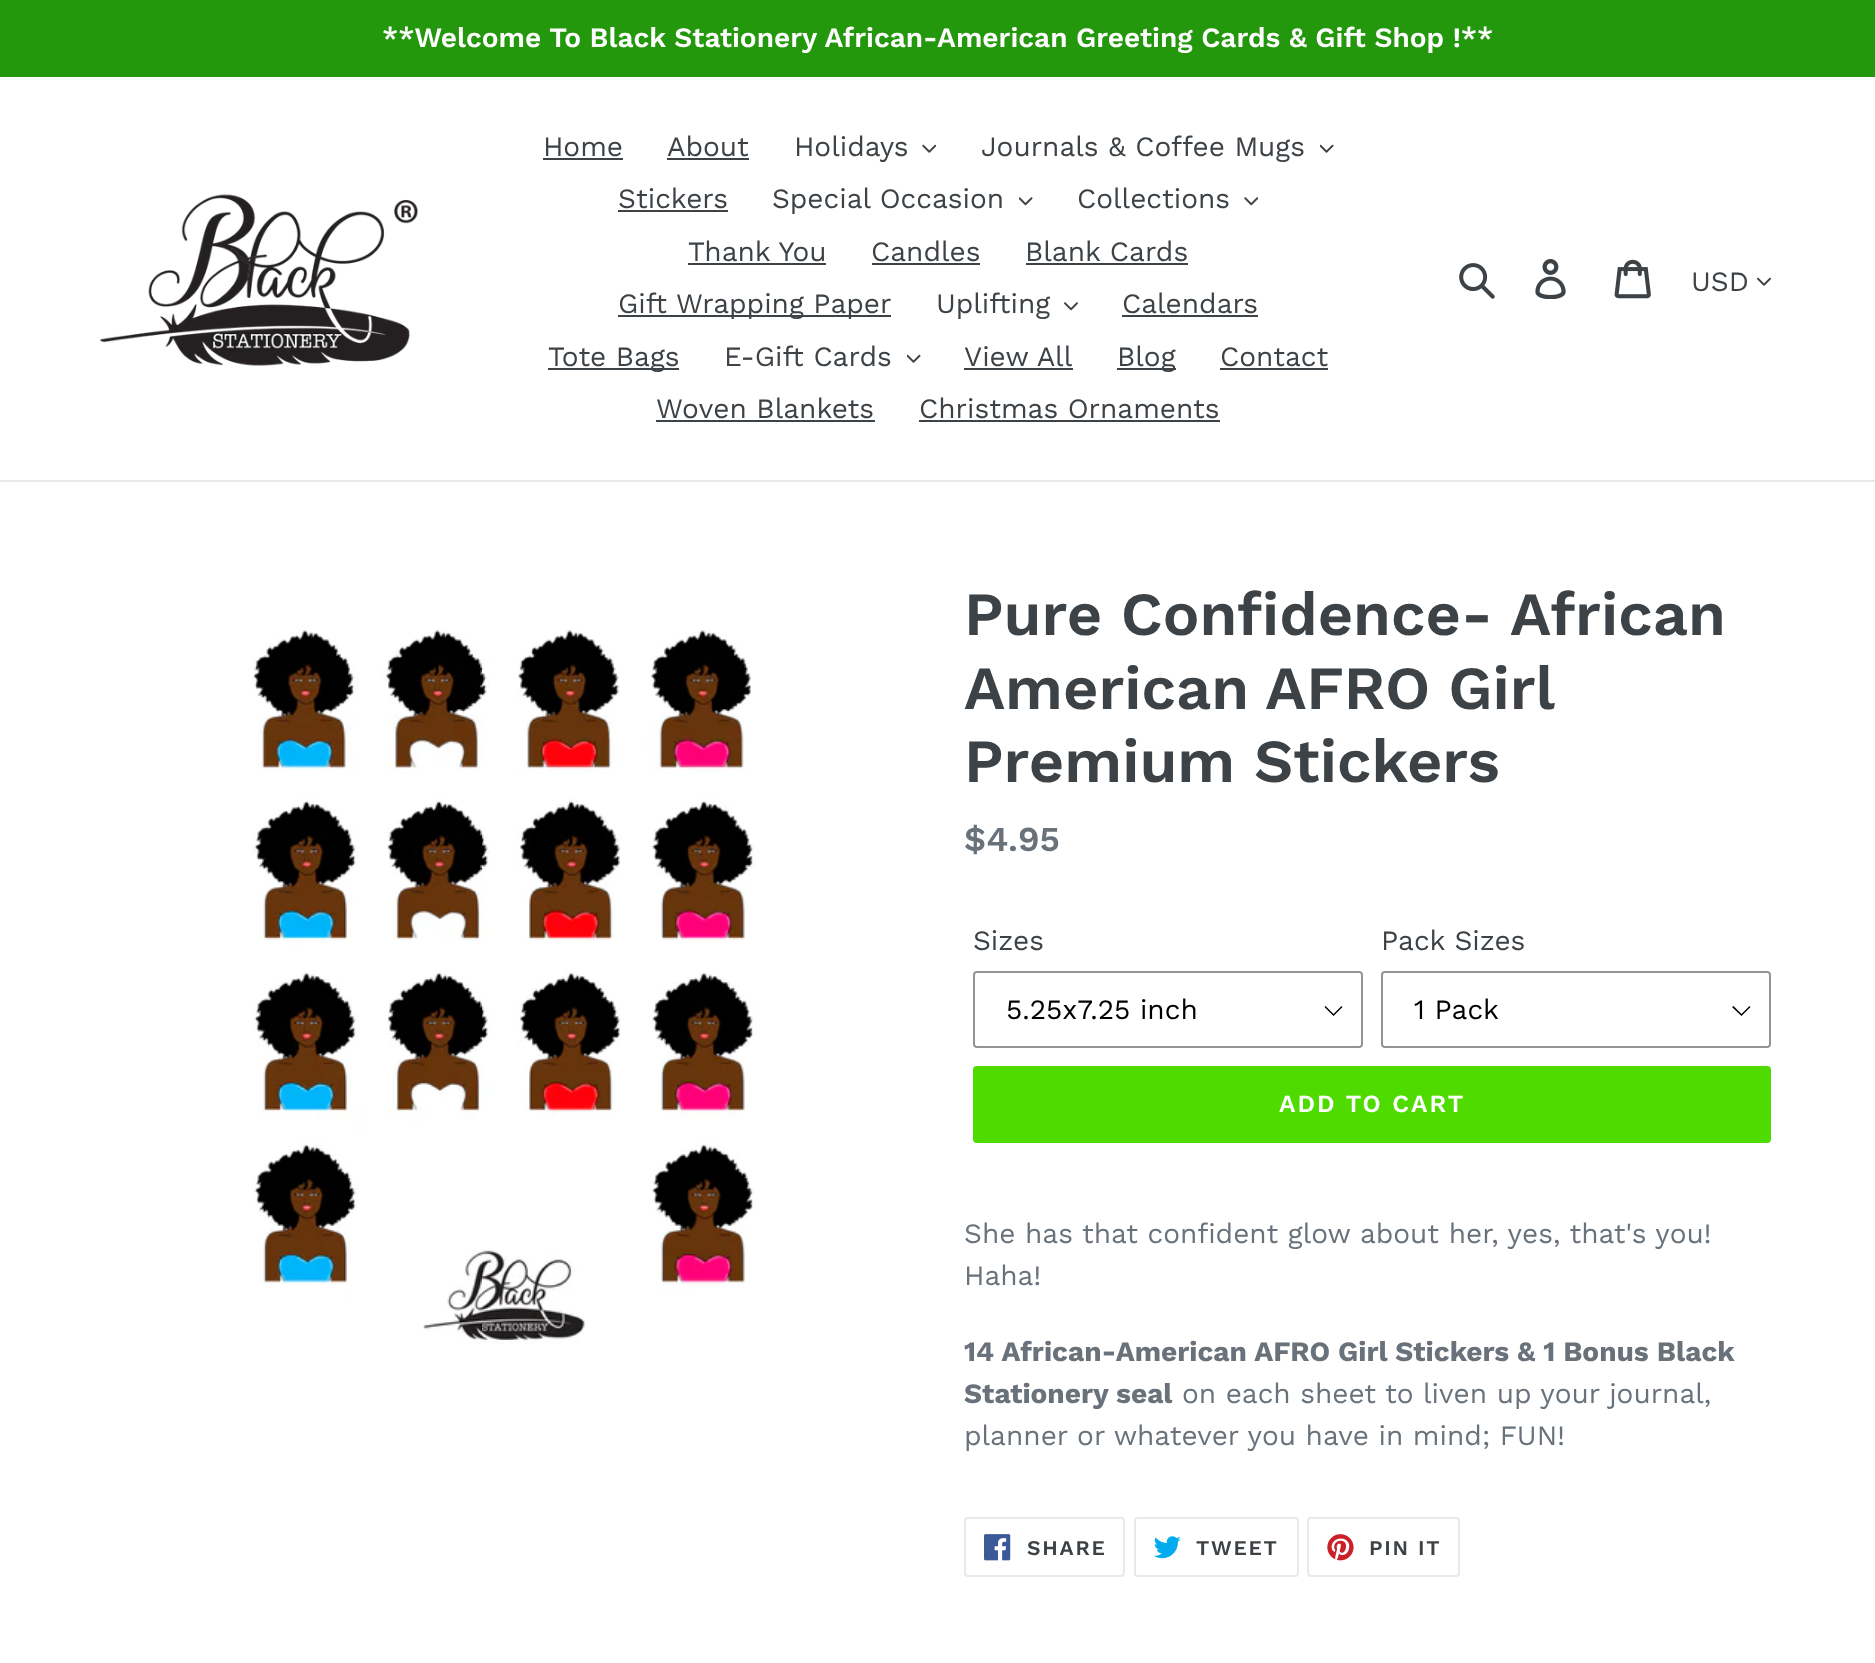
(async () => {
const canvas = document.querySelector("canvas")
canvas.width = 1875
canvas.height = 1663
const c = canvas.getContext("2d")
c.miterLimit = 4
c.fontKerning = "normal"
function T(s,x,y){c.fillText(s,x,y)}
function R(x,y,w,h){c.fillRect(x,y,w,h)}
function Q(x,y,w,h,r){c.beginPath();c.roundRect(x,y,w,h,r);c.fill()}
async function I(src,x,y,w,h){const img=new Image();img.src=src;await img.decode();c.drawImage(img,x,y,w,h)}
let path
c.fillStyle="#fff"
R(0,0,1875,1663)
c.fillStyle="#24980c"
R(0,0,1875,77)
c.font="600 28px Work Sans"
c.fillStyle="#fff"
T("**Welcome To Black Stationery African-American Greeting Cards & Gift Shop !**",382,47)
c.fillStyle="#e8e9eb"
R(0,480,1875,2)
await I("1.png",100,194,318,172)
c.font="28px Work Sans"
c.fillStyle="#3d4246"
T("Home",543,156)
R(543,158,80,2)
T("About",667,156)
R(667,158,82,2)
T("Holidays",794,156)
await I("2.png",922,144,14,9)
T("Journals & Coffee Mugs",981,156)
await I("3.png",1320,144,14,9)
T("Stickers",618,208)
R(618,210,110,2)
T("Special Occasion",772,208)
await I("4.png",1019,197,14,9)
T("Collections",1077,208)
await I("5.png",1244,197,14,9)
T("Thank You",688,261)
R(688,263,138,2)
T("Candles",871,261)
R(872,263,108,2)
T("Blank Cards",1025,261)
R(1026,263,162,2)
R(618,315,273,2)
T("Gift Wrapping Paper",618,313)
T("Uplifting",936,313)
await I("6.png",1064,302,14,9)
T("Calendars",1122,313)
R(1122,315,136,2)
R(548,368,131,2)
T("Tote Bags",548,366)
T("E-Gift Cards",724,366)
await I("3.png",907,354,14,9)
T("View All",964,366)
R(964,368,109,2)
R(1117,368,59,2)
T("Blog",1117,366)
T("Contact",1220,366)
R(1220,368,108,2)
T("Woven Blankets",656,418)
R(656,420,219,2)
T("Christmas Ornaments",919,418)
R(919,420,301,2)
await I("7.png",1459,263,36,36)
await I("8.png",1535,259,31,40)
await I("9.png",1614,259,37,40)
T("USD",1691,291)
await I("10.png",1757,277,14,9)
await I("11.png",252,629,504,715)
c.font="600 61.25px Work Sans"
T("Pure Confidence- African",964,635)
c.wordSpacing="-1px"
T("American AFRO Girl",964,709)
c.wordSpacing="0px"
T("Premium Stickers",964,782)
c.font="600 35px Work Sans"
c.fillStyle="#69727b"
T("$4.95",964,851)
c.font="28px Work Sans"
c.fillStyle="#3d4246"
T("Sizes",973,950)
c.fillStyle="#000"
path = new Path2D("M1333.5 1016l-9-9l1-1l8 8l8-8l1 1z")
c.fill(path)
c.beginPath()
c.roundRect(974,972,388,75,3)
c.strokeStyle="#949494"
c.lineWidth=2
c.stroke()
T("5.25x7.25 inch",1006,1019)
c.fillStyle="#3d4246"
T("Pack Sizes",1381,950)
c.fillStyle="#000"
path = new Path2D("M1741.5 1016l-9.5-9l1.5-1l8 8l8-8l1 1z")
c.fill(path)
c.beginPath()
c.roundRect(1382,972,388,75,3)
c.stroke()
T("1 Pack",1414,1019)
c.fillStyle="#4fdb00"
Q(973,1066,798,77,4)
c.letterSpacing="2px"
c.font="600 24.5px Work Sans"
c.fillStyle="#fff"
T("ADD TO CART",1279,1112)
c.letterSpacing="0px"
c.font="28px Work Sans"
c.fillStyle="#69727b"
T("She has that confident glow about her, yes, that's you!",964,1243)
T("Haha!",964,1285)
c.font="bold 28px Work Sans"
T("14 African-American AFRO Girl Stickers & 1 Bonus Black",964,1361)
T("Stationery seal",964,1403)
c.font="28px Work Sans"
T("on each sheet to liven up your journal,",1182,1403)
T("planner or whatever you have in mind; FUN!",964,1445)
c.beginPath()
c.roundRect(965,1518,159,58,3)
c.strokeStyle="#e8e9eb"
c.stroke()
await I("12.png",984,1534,27,27)
c.letterSpacing="1.75px"
c.font="600 21px Work Sans"
c.fillStyle="#3d4246"
T("SHARE",1027,1555)
c.beginPath()
c.roundRect(1135,1518,163,58,3)
c.stroke()
await I("13.png",1153,1536,28,23)
T("TWEET",1196,1555)
c.beginPath()
c.roundRect(1308,1518,151,58,3)
c.stroke()
await I("14.png",1327,1534,27,27)
T("PIN IT",1369,1555)
})()
